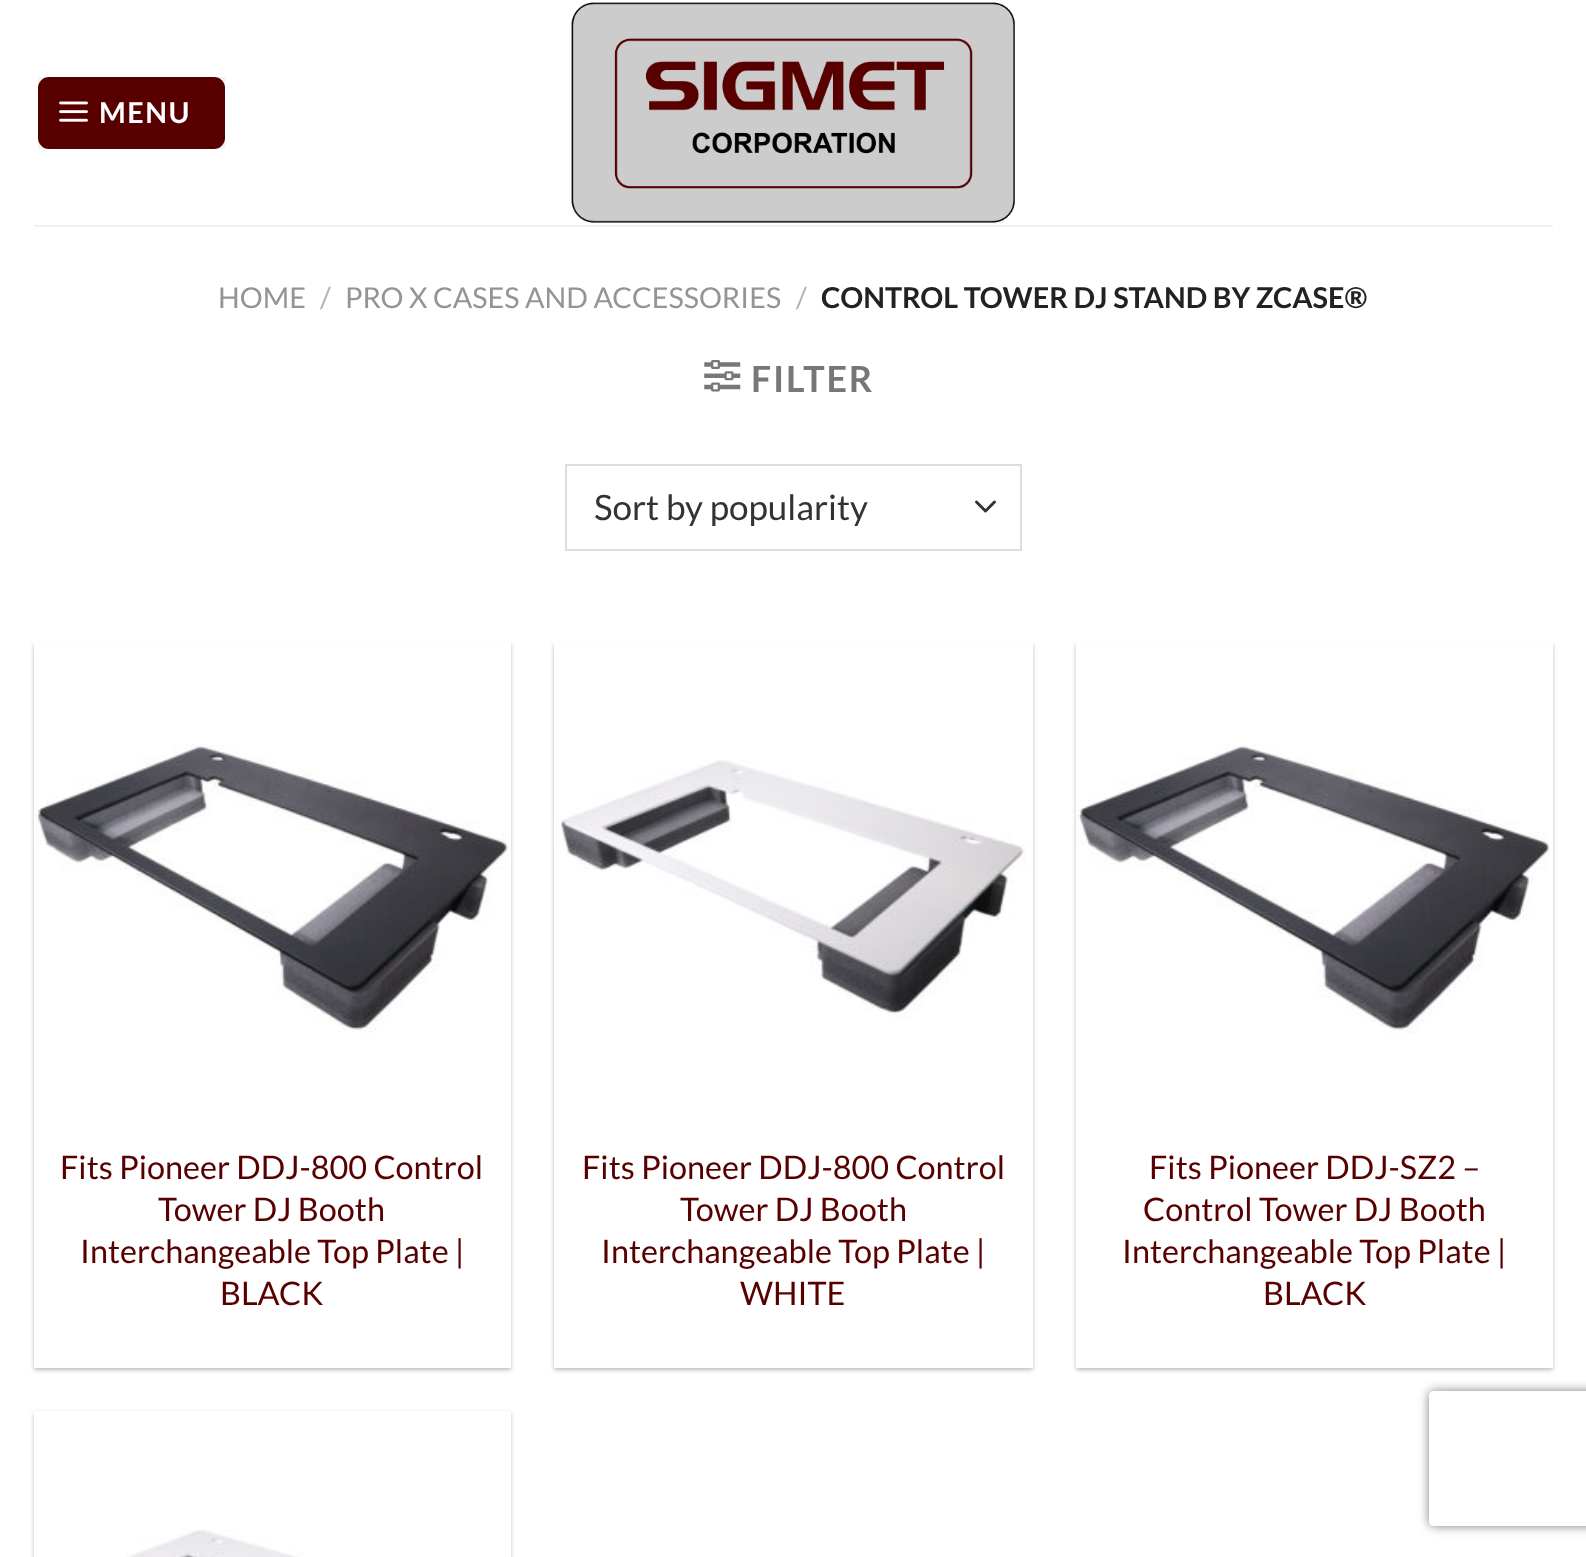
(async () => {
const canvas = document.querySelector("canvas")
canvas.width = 1586
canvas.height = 1557
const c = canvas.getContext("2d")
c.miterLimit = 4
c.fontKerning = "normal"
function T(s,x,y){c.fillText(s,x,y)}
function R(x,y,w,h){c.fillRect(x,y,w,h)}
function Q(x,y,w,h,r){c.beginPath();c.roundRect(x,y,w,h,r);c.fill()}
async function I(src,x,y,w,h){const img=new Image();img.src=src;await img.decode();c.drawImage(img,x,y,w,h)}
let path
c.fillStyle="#fff"
R(0,0,1586,1557)
c.fillStyle="#580000"
Q(38,77,187,72,11)
c.strokeStyle="#0000000d"
c.lineWidth=2
c.strokeRect(39,78,185,70)
await I("1.png",59,101,29,21)
c.letterSpacing="1.5px"
c.font="bold 28.75px Lato"
c.fillStyle="#fff"
T("MENU",99,123)
await I("2.png",571,2,444,221)
c.fillStyle="#f1f1f1"
R(34,225,1519,2)
c.letterSpacing="0px"
c.font="28.75px Lato"
c.fillStyle="#949494"
T("HOME",218,308)
c.fillStyle="#b2b2b2"
T("/",320,308)
c.fillStyle="#949494"
T("PRO X CASES AND ACCESSORIES",345,308)
c.fillStyle="#b2b2b2"
T("/",796,308)
c.font="bold 28.75px Lato"
c.fillStyle="#222"
T("CONTROL TOWER DJ STAND BY ZCASE®",821,308)
await I("3.png",704,360,37,32)
c.letterSpacing="1.75px"
c.font="bold 36px Lato"
c.fillStyle="#777"
T("FILTER",751,392)
path = new Path2D("M976.5 502l9 9l9-9")
c.strokeStyle="#333"
c.lineWidth=3
c.lineCap="round"
c.lineJoin="round"
c.stroke(path)
c.strokeStyle="#ddd"
c.lineWidth=2
c.lineJoin="miter"
c.strokeRect(566,465,455,85)
c.letterSpacing="0px"
c.font="35px Lato"
c.fillStyle="#333"
T("Sort by popularity",594,520)
c.fillStyle="#0000003d"
c.filter="blur(2px)"
c.beginPath()
c.rect(34,644,477,726)
c.fill()
c.filter="none"
c.fillStyle="#0000001f"
c.filter="blur(3.5px)"
c.beginPath()
c.rect(38,648,468,718)
c.fill()
c.filter="none"
c.fillStyle="#fff"
R(34,641,477,727)
await I("4.png",34,743,474,290)
c.font="32.4px Lato"
c.fillStyle="#580000"
T("Fits Pioneer DDJ-800 Control",60,1179)
T("Tower DJ Booth",158,1221)
T("Interchangeable Top Plate |",80,1263)
T("BLACK",220,1305)
c.fillStyle="#0000003d"
c.filter="blur(2px)"
c.beginPath()
c.rect(554,644,479,726)
c.fill()
c.filter="none"
c.fillStyle="#0000001f"
c.filter="blur(3.5px)"
c.beginPath()
c.rect(558,648,470,718)
c.fill()
c.filter="none"
c.fillStyle="#fff"
R(554,641,479,727)
await I("5.png",555,760,471,259)
c.fillStyle="#580000"
T("Fits Pioneer DDJ-800 Control",582,1179)
T("Tower DJ Booth",680,1221)
T("Interchangeable Top Plate |",601,1263)
T("WHITE",740,1305)
c.fillStyle="#0000003d"
c.filter="blur(2px)"
c.beginPath()
c.rect(1076,644,477,726)
c.fill()
c.filter="none"
c.fillStyle="#0000001f"
c.filter="blur(3.5px)"
c.beginPath()
c.rect(1080,648,468,718)
c.fill()
c.filter="none"
c.fillStyle="#fff"
R(1076,641,477,727)
await I("6.png",1076,743,474,291)
c.fillStyle="#580000"
T("Fits Pioneer DDJ-SZ2 –",1149,1179)
T("Control Tower DJ Booth",1143,1221)
T("Interchangeable Top Plate |",1122,1263)
T("BLACK",1263,1305)
c.fillStyle="#0000003d"
c.filter="blur(2px)"
c.beginPath()
c.rect(34,1413,477,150)
c.fill()
c.filter="none"
c.fillStyle="#fff"
R(34,1411,477,146)
await I("7.png",126,1529,178,28)
c.save()
path = new Path2D("M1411 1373h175v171h-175zm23 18h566c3 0 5 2 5 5v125c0 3-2 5-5 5h-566c-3 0-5-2-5-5v-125c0-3 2-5 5-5z")
c.clip(path,"evenodd")
c.fillStyle="#808080"
c.filter="blur(5.5px)"
c.beginPath()
c.roundRect(1429,1391,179,135,5)
c.fill()
c.filter="none"
c.restore()
})()
